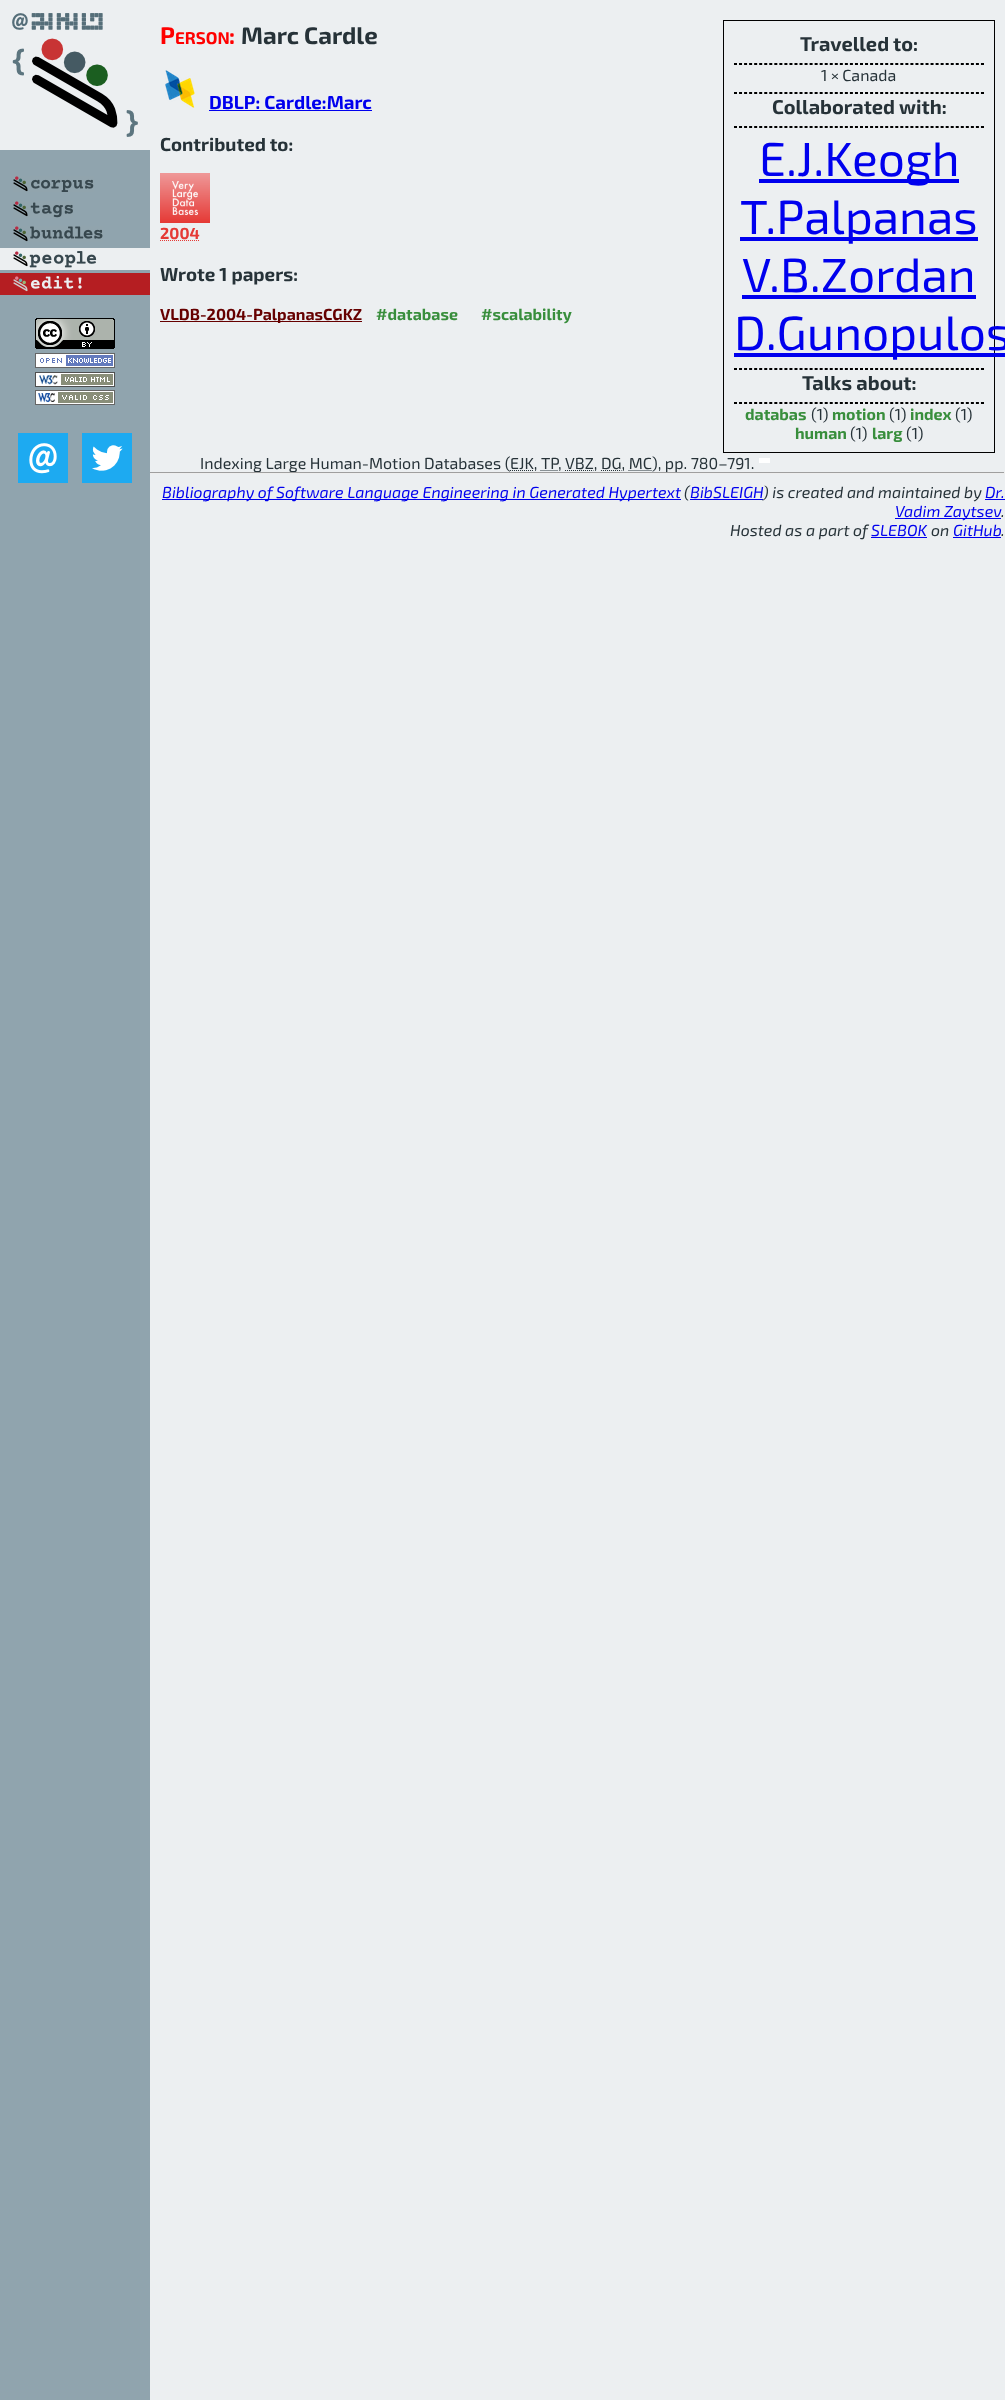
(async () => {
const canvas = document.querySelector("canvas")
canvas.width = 1005
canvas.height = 2400
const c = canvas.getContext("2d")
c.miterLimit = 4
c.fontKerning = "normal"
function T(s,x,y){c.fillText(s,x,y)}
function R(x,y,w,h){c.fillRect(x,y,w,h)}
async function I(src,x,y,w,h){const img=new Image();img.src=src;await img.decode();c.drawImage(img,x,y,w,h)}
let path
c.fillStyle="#eceff1"
R(0,0,1005,2400)
c.fillStyle="#90a4ae"
R(0,150,150,2250)
await I("1.png",0,0,150,150)
await I("2.png",13,176,81,16)
await I("3.png",13,201,60,17)
await I("4.png",13,226,90,16)
await I("5.png",0,248,150,22)
await I("6.png",0,273,150,22)
await I("7.png",35,318,80,31)
await I("8.png",35,353,80,15)
await I("9.png",35,372,80,15)
await I("10.png",35,390,80,15)
await I("11.png",18,433,50,50)
await I("12.png",82,433,50,50)
c.font="bold 24px 'Exo 2'"
c.fillStyle="#f00"
T("P",160,44)
c.font="bold 17px 'Exo 2'"
T("ERSON",175,44)
c.font="bold 24px 'Exo 2'"
T(":",229,44)
c.fillStyle="#263238"
T("Marc Cardle",241,44)
c.strokeStyle="#000"
c.strokeRect(723.5,20.5,271,432)
c.font="bold 20px 'Exo 2'"
T("Travelled to:",800,51)
path = new Path2D("M734 63.5h250")
c.setLineDash([3,2.04])
c.stroke(path)
c.fillStyle="#000"
R(983,63,1,2)
path = new Path2D("M734 64.5h250")
c.stroke(path)
c.font="16px 'Exo 2'"
c.fillStyle="#263238"
T("1 × Canada",821,81)
path = new Path2D("M734 92.5h250")
c.stroke(path)
c.fillStyle="#000"
R(983,92,1,2)
path = new Path2D("M734 93.5h250")
c.stroke(path)
c.font="bold 20px 'Exo 2'"
c.fillStyle="#263238"
T("Collaborated with:",772,114)
path = new Path2D("M734 126.5h250")
c.stroke(path)
c.fillStyle="#000"
R(983,126,1,2)
path = new Path2D("M734 127.5h250")
c.stroke(path)
c.fillStyle="#00e"
R(759,179,200,4)
c.font="48px 'Exo 2'"
T("E.J.Keogh",759,176)
R(740,237,238,4)
T("T.Palpanas",740,234)
T("V.B.Zordan",742,292)
R(742,295,234,4)
R(734,353,271,4)
T("D.Gunopulos",734,350)
path = new Path2D("M734 368.5h250")
c.stroke(path)
c.fillStyle="#000"
R(983,368,1,2)
path = new Path2D("M734 369.5h250")
c.stroke(path)
c.font="bold 20px 'Exo 2'"
c.fillStyle="#263238"
T("Talks about:",802,390)
path = new Path2D("M734 402.5h250")
c.stroke(path)
c.fillStyle="#000"
R(983,402,1,2)
path = new Path2D("M734 403.5h250")
c.stroke(path)
c.font="bold 16px 'Exo 2'"
c.fillStyle="#388e3c"
T("databas",745,420)
c.font="16px 'Exo 2'"
c.fillStyle="#263238"
T("(1)",811,420)
c.font="bold 16px 'Exo 2'"
c.fillStyle="#388e3c"
T("motion",832,420)
c.font="16px 'Exo 2'"
c.fillStyle="#263238"
T("(1)",889,420)
c.font="bold 16px 'Exo 2'"
c.fillStyle="#388e3c"
T("index",910,420)
c.font="16px 'Exo 2'"
c.fillStyle="#263238"
T("(1)",955,420)
c.font="bold 16px 'Exo 2'"
c.fillStyle="#388e3c"
T("human",795,439)
c.font="16px 'Exo 2'"
c.fillStyle="#263238"
T("(1)",850,439)
c.font="bold 16px 'Exo 2'"
c.fillStyle="#388e3c"
T("larg",872,439)
c.font="16px 'Exo 2'"
c.fillStyle="#263238"
T("(1)",906,439)
await I("13.png",165,70,30,38)
c.font="bold 18.75px 'Exo 2'"
c.fillStyle="#00e"
T("DBLP: Cardle:Marc",209,109)
R(209,110,163,1)
c.fillStyle="#263238"
T("Contributed to:",160,151)
await I("14.png",160,173,50,50)
c.font="bold 16px 'Exo 2'"
c.fillStyle="#e53935"
T("2004",160,239)
path = new Path2D("M160 240.5h39.5")
c.strokeStyle="#e53935"
c.setLineDash([1,1])
c.stroke(path)
c.font="bold 18.75px 'Exo 2'"
c.fillStyle="#263238"
T("Wrote 1 papers:",160,281)
c.fillStyle="#600"
R(160,321,202,1)
c.font="bold 16px 'Exo 2'"
T("VLDB-2004-PalpanasCGKZ",160,320)
c.fillStyle="#388e3c"
T("#database",376,320)
T("#scalability",481,320)
c.font="16px 'Exo 2'"
c.fillStyle="#263238"
T("Indexing Large Human-Motion Databases (",200,469)
path = new Path2D("M510 470.5h23.5")
c.strokeStyle="#263238"
c.stroke(path)
T("EJK,",510,469)
T("TP",541,469)
path = new Path2D("M540.5 470.5h17.5")
c.stroke(path)
path = new Path2D("M565 470.5h28.5")
c.stroke(path)
T("VBZ, DG, MC), pp. 780–791.",565,469)
T(",",558,469)
path = new Path2D("M601 470.5h20.5m7 0h23.5")
c.stroke(path)
c.fillStyle="#fff"
R(759,458,11,5)
c.fillStyle="#9f9f9f"
R(150,472,855,1)
c.fillStyle="#eee"
R(1004,472,1,2)
R(150,473,855,1)
c.fillStyle="#00e"
R(162,499,519,1)
c.font="italic 16px 'Exo 2'"
T("Bibliography of Software Language Engineering in Generated Hypertext",162,498)
c.fillStyle="#263238"
T("(",684,498)
c.fillStyle="#00e"
T("BibSLEIGH",690,498)
R(690,499,73,1)
c.fillStyle="#263238"
T(") is created and maintained by",763,498)
c.fillStyle="#00e"
T("Dr.",985,498)
R(985,499,20,1)
R(895,518,106,1)
T("Vadim Zaytsev",895,517)
c.fillStyle="#263238"
T(".",1001,517)
T("Hosted as a part of",730,536)
c.fillStyle="#00e"
R(871,537,56,1)
T("SLEBOK",871,536)
c.fillStyle="#263238"
T("on",931,536)
c.fillStyle="#00e"
T("GitHub",953,536)
c.fillStyle="#263238"
T(".",1001,536)
c.fillStyle="#00e"
R(953,537,48,1)
})()
